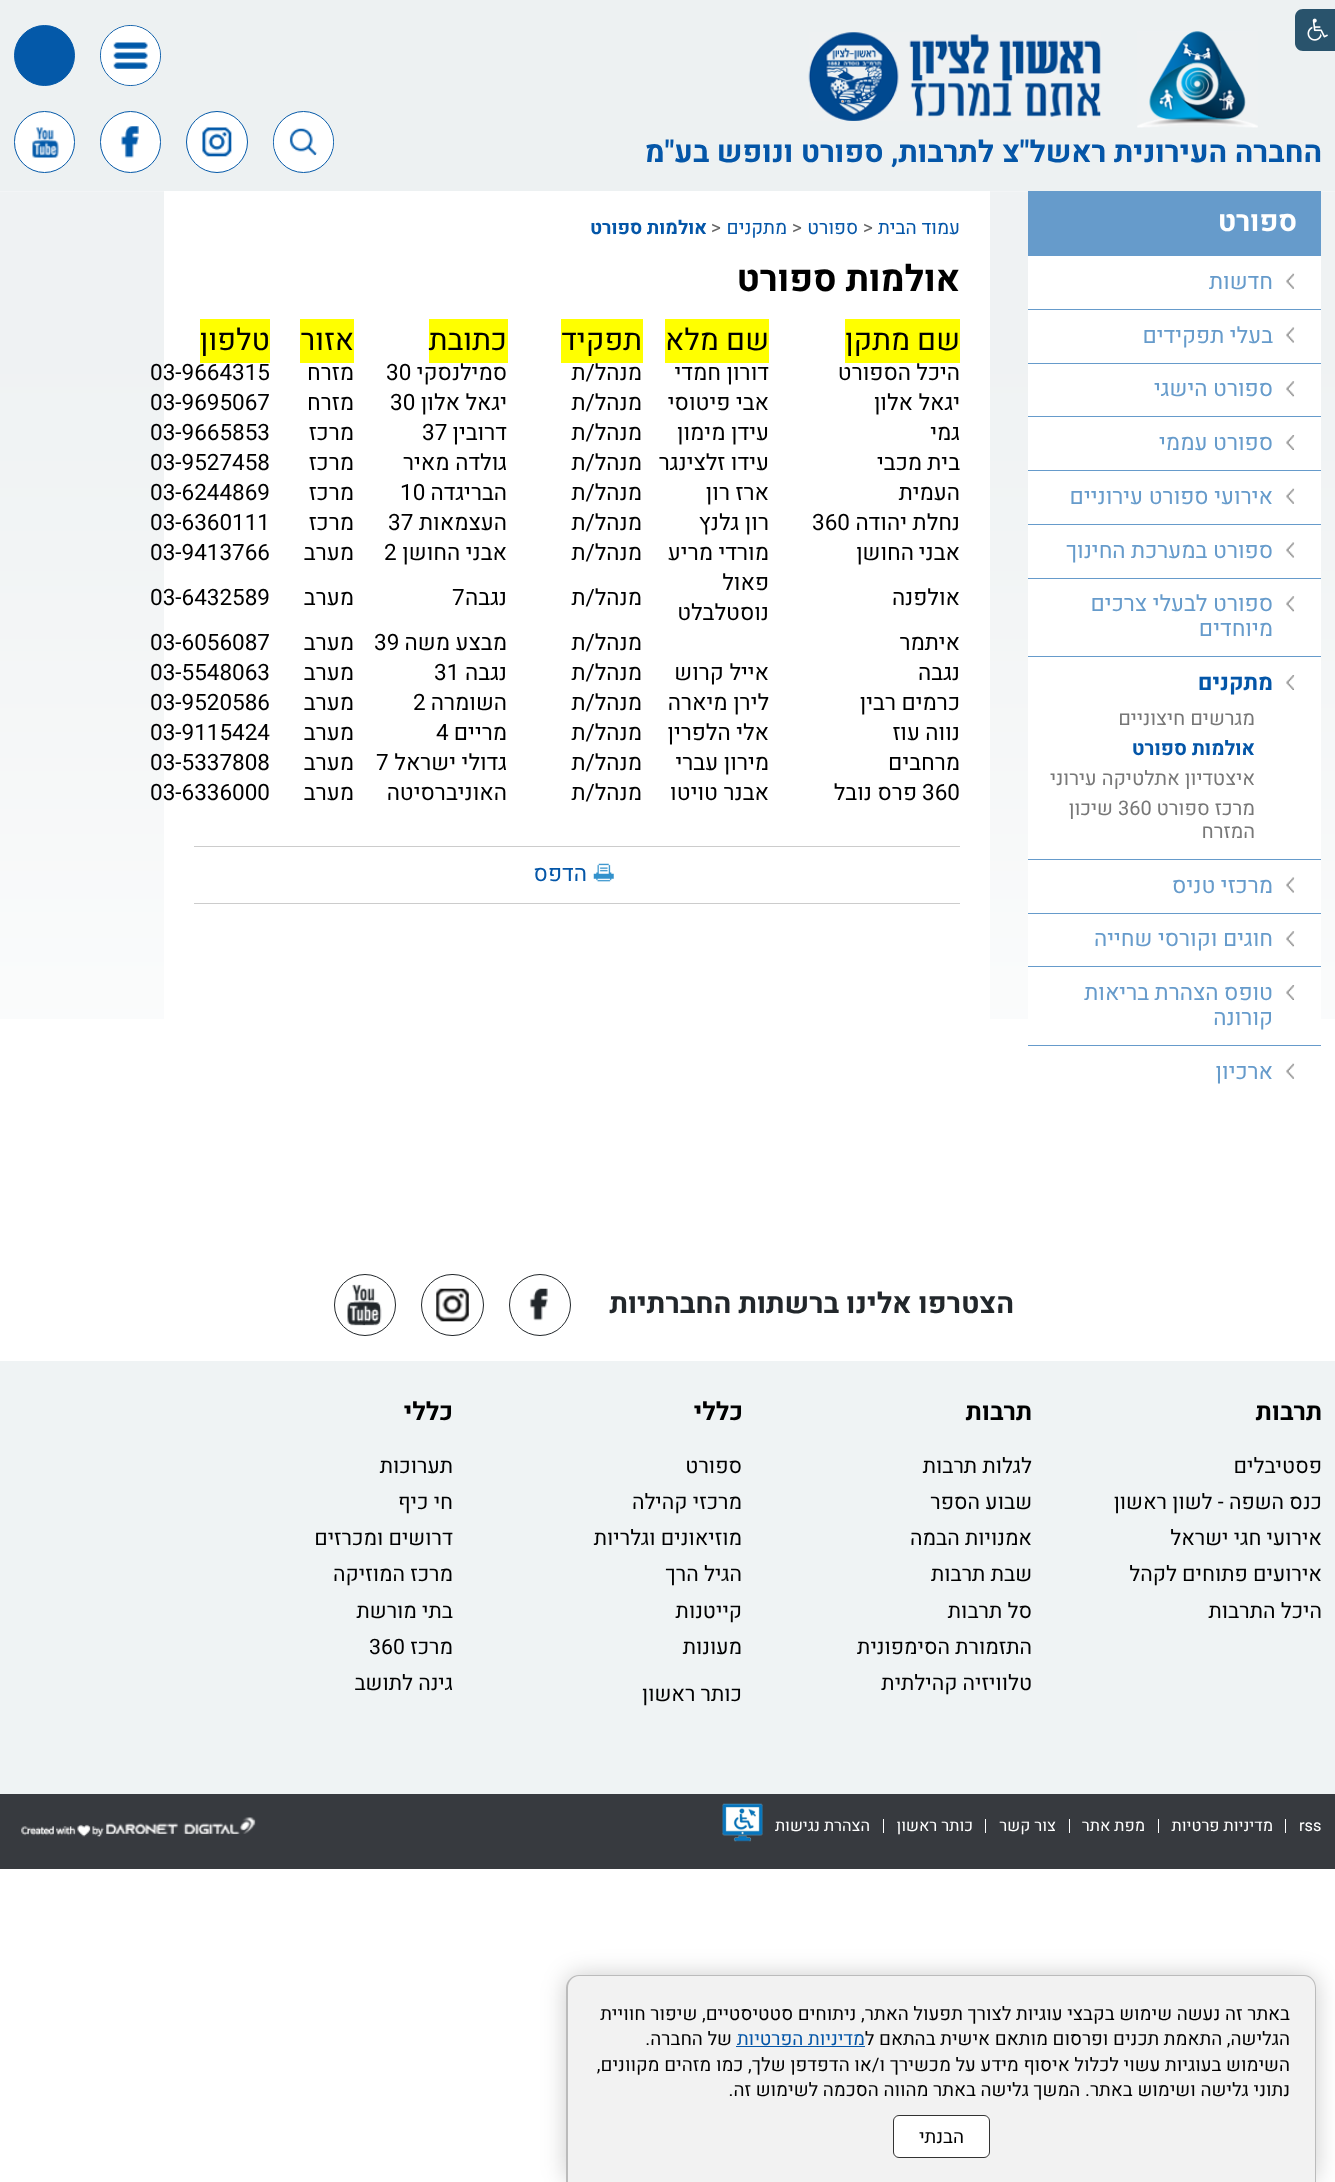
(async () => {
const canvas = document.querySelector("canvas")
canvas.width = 1335
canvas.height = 2182
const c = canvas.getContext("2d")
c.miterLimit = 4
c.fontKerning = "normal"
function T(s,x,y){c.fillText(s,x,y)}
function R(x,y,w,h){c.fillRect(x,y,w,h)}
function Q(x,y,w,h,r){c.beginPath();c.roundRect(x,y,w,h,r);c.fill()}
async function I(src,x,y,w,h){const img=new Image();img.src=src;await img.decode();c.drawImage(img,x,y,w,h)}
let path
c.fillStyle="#fff"
R(0,0,1335,2182)
c.fillStyle="#edf1f2"
R(0,0,1335,191)
c.fillStyle="#29536c"
path = new Path2D("M1303 9h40v42h-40c-4.5 0-8-3.5-8-8v-26c0-4.5 3.5-8 8-8z")
c.fill(path)
await I("1.png",1307,18,21,23)
c.fillStyle="#0459a9"
c.beginPath()
c.arc(44.5,55.5,30,0,7)
c.fill()
c.strokeStyle="#0459a9"
c.stroke()
await I("2.png",1137,31,121,97)
await I("3.png",808,32,293,89)
c.direction="rtl"
c.font="bold 30px Heebo"
c.fillStyle="#0456a8"
T("החברה העירונית ראשל\"צ",1322,162)
T("לתרבות, ספורט ונופש בע\"מ",994,162)
c.beginPath()
c.arc(130.5,55.5,30,0,7)
c.stroke()
c.fillStyle="#fff"
c.beginPath()
c.arc(130.5,55.5,29.5,0,7)
c.fill()
await I("4.png",113,42,35,27)
c.beginPath()
c.roundRect(273.5,111.5,60,61,30)
c.fill()
c.stroke()
Q(274,113,59,58,29)
await I("5.png",289,128,28,28)
c.beginPath()
c.arc(217,142,30.5,0,7)
c.fill()
c.stroke()
await I("6.png",202,127,30,30)
c.beginPath()
c.roundRect(100.5,111.5,60,61,30)
c.fill()
c.stroke()
await I("7.png",121,126,18,32)
c.beginPath()
c.roundRect(14.5,111.5,60,61,30)
c.fill()
c.stroke()
await I("8.png",32,127,27,31)
await I("9.png",0,191,1335,828)
R(1028,256,293,763)
c.fillStyle="#669bcb"
R(1028,191,293,65)
c.font="bold 28.75px Heebo"
c.fillStyle="#fff"
T("ספורט",1297,231)
c.fillStyle="#669bcb"
R(1028,309,293,1)
await I("10.png",1286,273,9,16)
c.font="22.5px Heebo"
T("חדשות",1273,289)
R(1028,363,293,1)
await I("11.png",1286,327,9,16)
T("בעלי תפקידים",1273,343)
R(1028,416,293,1)
await I("12.png",1286,381,9,16)
T("ספורט הישגי",1273,396)
R(1028,470,293,1)
await I("13.png",1286,435,9,15)
T("ספורט עממי",1273,450)
R(1028,524,293,1)
await I("10.png",1286,488,9,16)
T("אירועי ספורט עירוניים",1273,504)
R(1028,578,293,1)
await I("11.png",1286,542,9,16)
T("ספורט במערכת החינוך",1273,558)
R(1028,656,293,1)
await I("12.png",1286,596,9,16)
T("ספורט לבעלי צרכים",1273,611)
T("מיוחדים",1273,636)
R(1028,859,293,1)
await I("13.png",1286,675,9,15)
c.font="bold 22.5px Heebo"
c.fillStyle="#0456a8"
T("מתקנים",1273,690)
c.font="20px Heebo"
c.fillStyle="#777"
T("מגרשים חיצוניים",1255,725)
c.font="bold 20px Heebo"
c.fillStyle="#0456a8"
T("אולמות ספורט",1255,755)
c.font="20px Heebo"
c.fillStyle="#777"
T("איצטדיון אתלטיקה עירוני",1255,785)
T("מרכז ספורט",1255,815)
c.direction="ltr"
T("360",1118,815)
c.direction="rtl"
T("שיכון",1113,815)
T("המזרח",1255,838)
c.fillStyle="#669bcb"
R(1028,913,293,1)
await I("11.png",1286,877,9,16)
c.font="22.5px Heebo"
T("מרכזי טניס",1273,893)
R(1028,966,293,1)
await I("12.png",1286,931,9,16)
T("חוגים וקורסי שחייה",1273,946)
R(1028,1045,293,1)
await I("13.png",1286,985,9,15)
T("טופס הצהרת בריאות",1273,1000)
T("קורונה",1273,1025)
await I("10.png",1286,1063,9,16)
T("ארכיון",1273,1079)
c.fillStyle="#fff"
R(164,191,826,828)
c.font="19px Heebo"
c.fillStyle="#0456a8"
T("עמוד הבית",960,234)
c.direction="ltr"
c.fillStyle="#666"
T(">",863,234)
c.direction="rtl"
c.fillStyle="#0456a8"
T("ספורט",858,234)
c.direction="ltr"
c.fillStyle="#666"
T(">",792,234)
c.direction="rtl"
c.fillStyle="#0456a8"
T("מתקנים",787,234)
c.direction="ltr"
c.fillStyle="#666"
T(">",711,234)
c.direction="rtl"
c.font="bold 19px Heebo"
c.fillStyle="#0456a8"
T("אולמות ספורט",707,234)
c.font="bold 36.25px Heebo"
c.fillStyle="#000"
T("אולמות ספורט",960,291)
c.fillStyle="#ff0"
R(845,319,115,44)
c.font="30px Heebo"
c.fillStyle="#000"
T("שם",960,350)
T("מתקן",910,350)
c.fillStyle="#ff0"
R(665,319,104,44)
c.fillStyle="#000"
T("שם מלא",769,350)
c.fillStyle="#ff0"
R(561,319,82,44)
c.fillStyle="#000"
T("תפקיד",642,350)
c.fillStyle="#ff0"
R(429,319,79,44)
c.fillStyle="#000"
T("כתובת",507,350)
c.fillStyle="#ff0"
R(300,319,54,44)
c.fillStyle="#000"
T("אזור",354,350)
c.fillStyle="#ff0"
R(200,319,70,44)
c.fillStyle="#000"
T("טלפון",270,350)
c.font="22.5px Heebo"
T("היכל",960,380)
T("הספורט",911,380)
T("דורון חמדי",769,380)
T("מנהל/ת",642,380)
T("סמילנסקי",507,380)
c.direction="ltr"
T("30",386,380)
c.direction="rtl"
T("מזרח",354,380)
c.direction="ltr"
T("03-9664315",150,380)
c.direction="rtl"
T("יגאל",960,410)
T("אלון",913,410)
T("אבי פיטוסי",769,410)
T("מנהל/ת",642,410)
T("יגאל אלון",507,410)
c.direction="ltr"
T("30",390,410)
c.direction="rtl"
T("מזרח",354,410)
c.direction="ltr"
T("03-9695067",150,410)
c.direction="rtl"
T("גמי",960,440)
T("עידן מימון",769,440)
T("מנהל/ת",642,440)
T("דרובין",507,440)
c.direction="ltr"
T("37",422,440)
c.direction="rtl"
T("מרכז",354,440)
c.direction="ltr"
T("03-9665853",150,440)
c.direction="rtl"
T("בית",960,470)
T("מכבי",922,470)
T("עידו זלצינגר",769,470)
T("מנהל/ת",642,470)
T("גולדה מאיר",507,470)
T("מרכז",354,470)
c.direction="ltr"
T("03-9527458",150,470)
c.direction="rtl"
T("העמית",960,500)
T("ארז רון",769,500)
T("מנהל/ת",642,500)
T("הבריגדה",507,500)
c.direction="ltr"
T("10",400,500)
c.direction="rtl"
T("מרכז",354,500)
c.direction="ltr"
T("03-6244869",150,500)
c.direction="rtl"
T("נחלת",960,530)
T("יהודה",907,530)
c.direction="ltr"
T("360",812,530)
c.direction="rtl"
T("רון גלנץ",769,530)
T("מנהל/ת",642,530)
T("העצמאות",507,530)
c.direction="ltr"
T("37",388,530)
c.direction="rtl"
T("מרכז",354,530)
c.direction="ltr"
T("03-6360111",150,530)
c.direction="rtl"
T("אבני",960,560)
T("החושן",914,560)
T("מורדי מריע",769,560)
T("מנהל/ת",642,560)
T("אבני החושן",507,560)
c.direction="ltr"
T("2",384,560)
c.direction="rtl"
T("מערב",354,560)
c.direction="ltr"
T("03-9413766",150,560)
c.direction="rtl"
T("אולפנה",960,605)
T("פאול",769,590)
T("נוסטלבלט",769,620)
T("מנהל/ת",642,605)
T("נגבה",507,605)
c.direction="ltr"
T("7",452,605)
c.direction="rtl"
T("מערב",354,605)
c.direction="ltr"
T("03-6432589",150,605)
c.direction="rtl"
T("איתמר",960,650)
T("מנהל/ת",642,650)
T("מבצע משה",507,650)
c.direction="ltr"
T("39",374,650)
c.direction="rtl"
T("מערב",354,650)
c.direction="ltr"
T("03-6056087",150,650)
c.direction="rtl"
T("נגבה",960,680)
T("אייל קרוש",769,680)
T("מנהל/ת",642,680)
T("נגבה",507,680)
c.direction="ltr"
T("31",434,680)
c.direction="rtl"
T("מערב",354,680)
c.direction="ltr"
T("03-5548063",150,680)
c.direction="rtl"
T("כרמים",960,710)
T("רבין",896,710)
T("לירן מיארה",769,710)
T("מנהל/ת",642,710)
T("השומרה",507,710)
c.direction="ltr"
T("2",413,710)
c.direction="rtl"
T("מערב",354,710)
c.direction="ltr"
T("03-9520586",150,710)
c.direction="rtl"
T("נווה",960,740)
T("עוז",920,740)
T("אלי הלפרין",769,740)
T("מנהל/ת",642,740)
T("מריים",507,740)
c.direction="ltr"
T("4",436,740)
c.direction="rtl"
T("מערב",354,740)
c.direction="ltr"
T("03-9115424",150,740)
c.direction="rtl"
T("מרחבים",960,770)
T("מירון עברי",769,770)
T("מנהל/ת",642,770)
T("גדולי ישראל",507,770)
c.direction="ltr"
T("7",376,770)
c.direction="rtl"
T("מערב",354,770)
c.direction="ltr"
T("03-5337808",150,770)
T("360",922,800)
c.direction="rtl"
T("פרס נובל",917,800)
T("אבנר טויטו",769,800)
T("מנהל/ת",642,800)
T("האוניברסיטה",507,800)
T("מערב",354,800)
c.direction="ltr"
T("03-6336000",150,800)
c.fillStyle="#ccc"
R(194,846,766,1)
R(194,903,766,1)
await I("14.png",593,863,21,19)
c.direction="rtl"
c.fillStyle="#0456a8"
T("הדפס",587,881)
c.font="bold 28.75px Heebo"
c.fillStyle="#22272b"
T("הצטרפו אלינו ברשתות החברתיות",1014,1313)
c.beginPath()
c.arc(540,1305,30.5,0,7)
c.strokeStyle="#22272b"
c.stroke()
await I("15.png",529,1288,19,33)
c.beginPath()
c.roundRect(421.5,1274.5,62,61,30.5)
c.stroke()
await I("16.png",436,1288,33,34)
c.beginPath()
c.arc(365,1305,30.5,0,7)
c.stroke()
await I("17.png",347,1284,35,42)
c.fillStyle="#eff3f4"
R(0,1361,1335,433)
c.font="bold 25px Heebo"
c.fillStyle="#000"
T("תרבות",1322,1420)
c.font="21.25px Heebo"
T("פסטיבלים",1322,1473)
T("כנס השפה - לשון ראשון",1322,1509)
T("אירועי חגי ישראל",1322,1545)
T("אירועים פתוחים לקהל",1322,1581)
T("היכל התרבות",1322,1618)
c.font="bold 25px Heebo"
T("תרבות",1032,1420)
c.font="21.25px Heebo"
T("לגלות תרבות",1032,1473)
T("שבוע הספר",1032,1509)
T("אמנויות הבמה",1032,1545)
T("שבת תרבות",1032,1581)
T("סל תרבות",1032,1618)
T("התזמורת הסימפונית",1032,1654)
T("טלוויזיה קהילתית",1032,1690)
c.font="bold 25px Heebo"
T("כללי",743,1420)
c.font="21.25px Heebo"
T("ספורט",742,1473)
T("מרכזי קהילה",742,1509)
T("מוזיאונים וגלריות",742,1545)
T("הגיל הרך",742,1581)
T("קייטנות",742,1618)
T("מעונות",742,1654)
T("כותר ראשון",742,1701)
c.font="bold 25px Heebo"
T("כללי",453,1420)
c.font="21.25px Heebo"
T("תערוכות",453,1473)
T("חי כיף",453,1509)
T("דרושים ומכרזים",453,1545)
T("מרכז המוזיקה",453,1581)
T("בתי מורשת",453,1618)
T("מרכז",453,1654)
c.direction="ltr"
T("360",369,1654)
c.direction="rtl"
T("גינה לתושב",453,1690)
c.fillStyle="#373a3f"
R(0,1794,1335,75)
c.direction="ltr"
c.font="16.25px Heebo"
c.fillStyle="#fff"
T("rss",1299,1831)
R(1285,1819,1,14)
c.direction="rtl"
T("מדיניות פרטיות",1273,1831)
R(1158,1819,1,14)
T("מפת אתר",1145,1831)
R(1069,1819,1,14)
T("צור קשר",1056,1831)
R(985,1819,1,14)
T("כותר ראשון",973,1831)
R(883,1819,1,14)
T("הצהרת נגישות",870,1831)
await I("18.png",722,1803,41,39)
await I("19.png",21,1817,235,20)
c.fillStyle="#00000033"
c.filter="blur(12.5px)"
c.beginPath()
c.roundRect(566,1975,750,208,13)
c.fill()
c.filter="none"
c.fillStyle="#f2f2f2"
path = new Path2D("M579 1975h724c7 0 13 6 13 13v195h-750v-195c0-7 6-13 13-13z")
c.fill(path)
c.fillStyle="#bbb"
path = new Path2D("M579 1975h725c7 0 12 6 12 13v194h-750v-194c0-7 6-13 13-13zm0 1h725c6 0 11 5 11 12v194h-747v-194c0-7 5-12 11-12z")
c.fill(path,"evenodd")
c.font="18.75px Heebo"
c.fillStyle="#000"
T("באתר זה נעשה שימוש בקבצי עוגיות לצורך תפעול האתר, ניתוחים סטטיסטיים, שיפור חוויית",1290,2020)
T("הגלישה, התאמת תכנים ופרסום מותאם אישית בהתאם ל",1290,2045)
c.fillStyle="#0456a8"
T("מדיניות הפרטיות",865,2045)
R(736,2046,129,1)
c.fillStyle="#000"
T("של החברה.",732,2045)
T("השימוש בעוגיות עשוי לכלול איסוף מידע על מכשירך ו/או הדפדפן שלך, כמו מזהים מקוונים,",1290,2071)
T("נתוני גלישה ושימוש באתר. המשך",1290,2096)
T("גלישה באתר מהווה הסכמה לשימוש זה.",1029,2096)
c.fillStyle="#fff"
c.beginPath()
c.roundRect(893.5,2115.5,96,42,5.5)
c.fill()
c.strokeStyle="#333"
c.stroke()
c.fillStyle="#000"
T("הבנתי",964,2143)
})()
